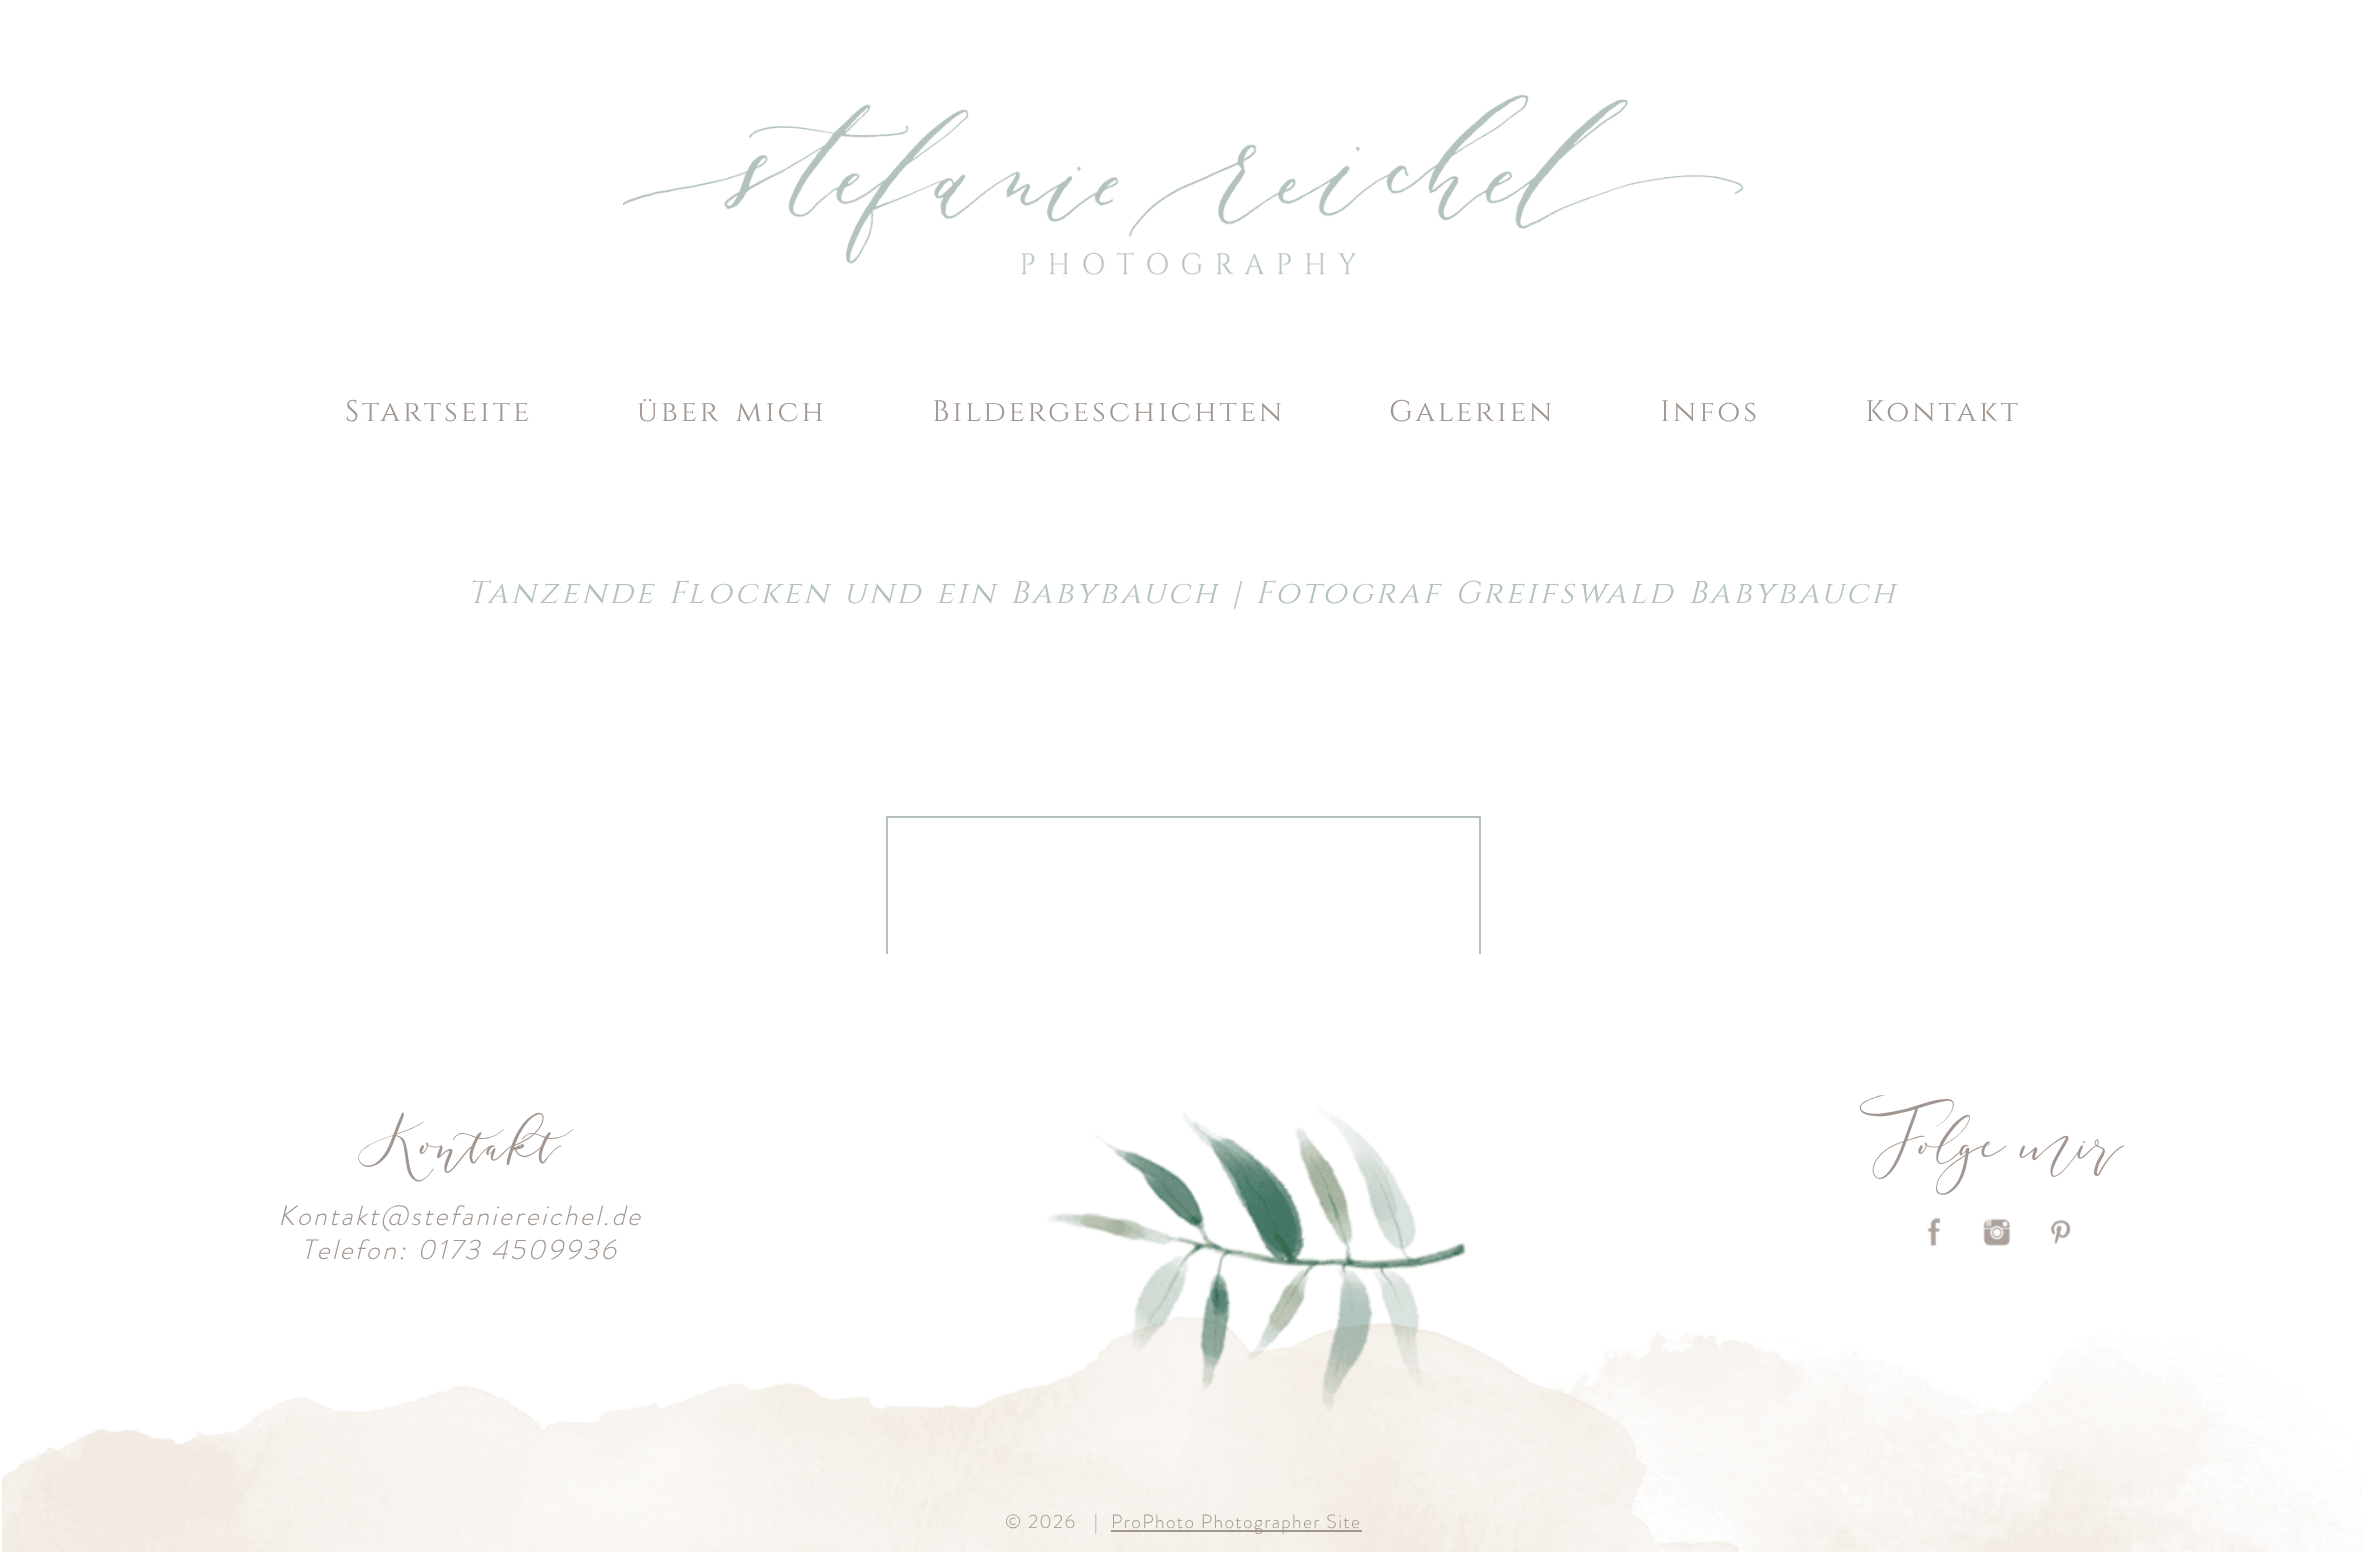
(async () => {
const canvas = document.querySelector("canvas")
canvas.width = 2366
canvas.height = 1552
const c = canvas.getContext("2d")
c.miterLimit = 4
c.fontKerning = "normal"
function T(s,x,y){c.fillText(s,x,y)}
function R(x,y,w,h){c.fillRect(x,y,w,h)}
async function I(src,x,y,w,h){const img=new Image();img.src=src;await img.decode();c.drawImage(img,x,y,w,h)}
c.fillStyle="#fff"
R(0,0,2366,1552)
await I("1.png",2,1316,2360,236)
await I("2.png",623,94,1120,181)
c.letterSpacing="3px"
c.font="29.75px Cinzel"
c.fillStyle="#a29690"
T("Startseite",345,421)
c.wordSpacing="4px"
T("über mich",637,421)
c.wordSpacing="0px"
T("Bildergeschichten",932,421)
T("Galerien",1389,421)
T("Infos",1660,421)
T("Kontakt",1865,421)
c.letterSpacing="3.15px"
c.wordSpacing="1.5px"
c.font="italic 31.5px Cinzel"
c.fillStyle="#b3c2bd"
T("Tanzende Flocken und ein Babybauch | Fotograf Greifswald Babybauch",467,603)
c.save()
c.beginPath()
c.rect(886,816,595,138)
c.clip()
c.strokeStyle="#b3c2bd"
c.lineWidth=2
c.strokeRect(887,817,593,138)
c.restore()
c.letterSpacing="0px"
c.wordSpacing="0px"
c.font="87.5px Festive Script"
c.fillStyle="#a29690"
T("Kontakt",357,1169)
c.letterSpacing="2.25px"
c.font="italic 28px 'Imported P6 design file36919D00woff'"
T("Kontakt@stefaniereichel.de",278,1225)
c.wordSpacing="1px"
T("Telefon: 0173 4509936",301,1259)
await I("3.png",1047,1107,420,304)
c.letterSpacing="0px"
c.wordSpacing="0px"
c.font="87.5px Festive Script"
T("Folge mir",1869,1169)
await I("4.png",1927,1217,14,29)
await I("5.png",1983,1218,28,28)
await I("6.png",2051,1219,20,25)
c.letterSpacing="1.35px"
c.font="19.25px 'Imported P6 design file36919D00woff'"
T("© 2026",1005,1528)
T("|",1094,1528)
R(1111,1530,251,2)
T("ProPhoto Photographer Site",1111,1528)
})()
